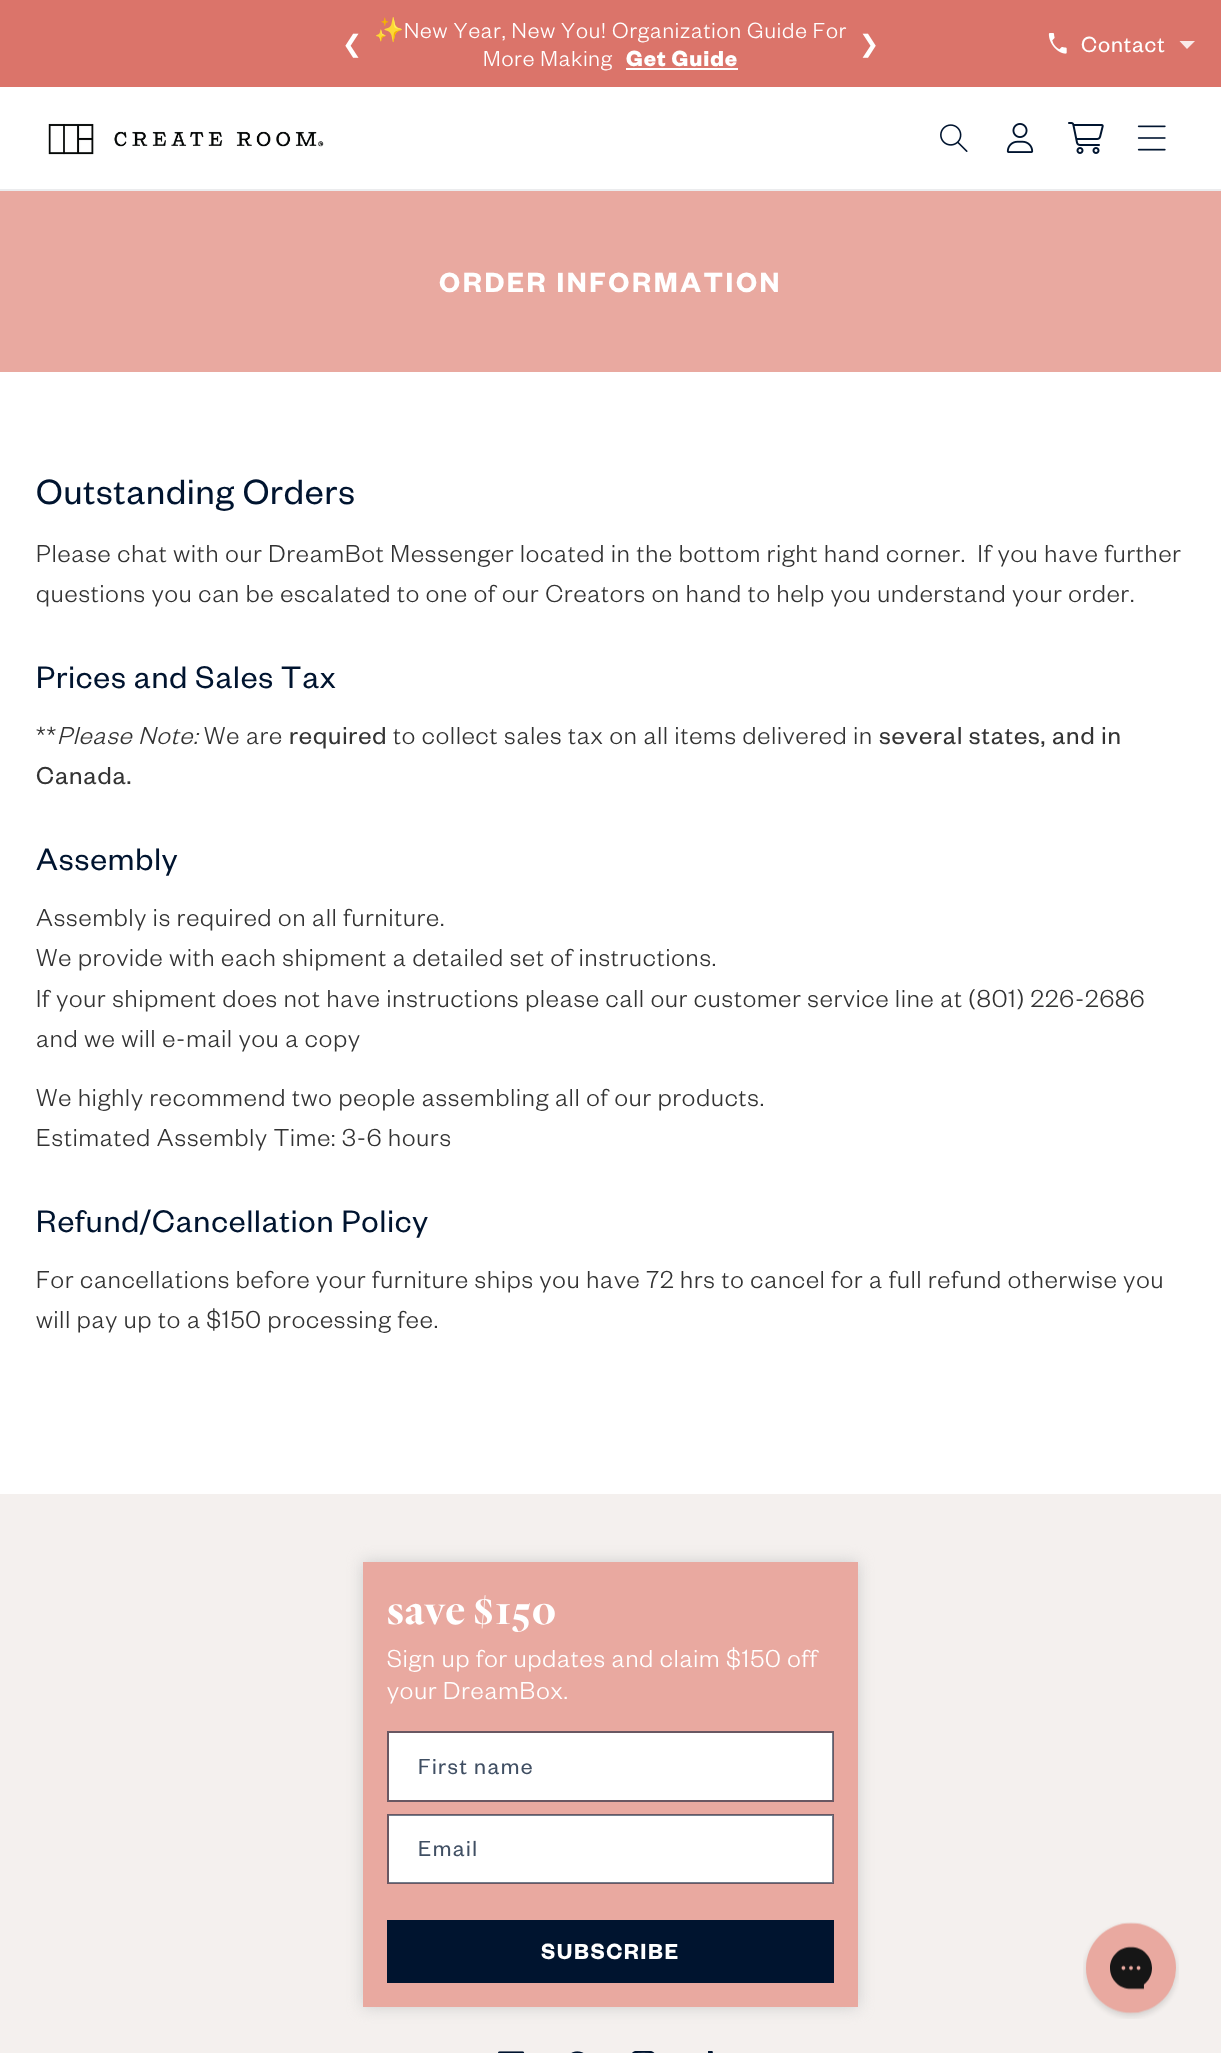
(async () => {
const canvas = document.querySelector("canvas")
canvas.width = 1221
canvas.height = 2053
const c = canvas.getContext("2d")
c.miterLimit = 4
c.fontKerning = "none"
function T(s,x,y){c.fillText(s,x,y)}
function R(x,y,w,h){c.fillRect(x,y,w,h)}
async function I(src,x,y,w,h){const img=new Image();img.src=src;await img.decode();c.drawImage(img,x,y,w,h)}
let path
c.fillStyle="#fff"
R(0,0,1221,2053)
c.fillStyle="#db746a"
R(0,0,1221,87)
c.font="24px DejaVu Sans"
c.fillStyle="#fff"
T("❮",342,52)
c.letterSpacing="0.9px"
c.font="24px Noto Color Emoji"
T("✨",374,38)
c.font="300 24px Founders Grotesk"
T("New Year, New You!",404,38)
T("Organization Guide For",612,38)
T("More Making",483,66)
c.font="bold 24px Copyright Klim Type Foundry"
T("Get Guide",626,66)
R(626,68,112,2)
c.letterSpacing="0px"
c.font="24px DejaVu Sans"
T("❯",859,52)
await I("1.png",1048,33,19,21)
c.letterSpacing="0.9px"
c.font="24px Founders Grotesk"
T("Contact",1081,52)
c.fillStyle="#faeae9"
path = new Path2D("M1179.5 41l7.5 8l8-8")
c.fill(path)
c.fillStyle="#ebecee"
R(0,189,1221,2)
await I("2.png",48,123,276,32)
await I("3.png",940,124,28,28)
await I("4.png",1006,123,28,30)
await I("5.png",1068,122,36,32)
await I("6.png",1137,125,29,26)
c.fillStyle="#e9a9a0"
R(0,191,1221,181)
c.letterSpacing="2.6px"
c.font="600 30.4px Founders Grotesk"
c.fillStyle="#fff"
T("ORDER INFORMATION",439,292)
c.letterSpacing="0.9px"
c.font="38.5px Founders Grotesk"
c.fillStyle="#00142f"
T("Outstanding Orders",36,504)
c.font="300 27px Founders Grotesk"
c.fillStyle="#333"
T("Please chat with our DreamBot Messenger located in the bottom right hand corner.  If you have further",36,562)
T("questions you can be escalated to one of our Creators on hand to help you understand your order.",36,602)
c.font="34.25px Founders Grotesk"
c.fillStyle="#00142f"
T("Prices and Sales Tax",36,688)
c.font="300 27px Founders Grotesk"
c.fillStyle="#333"
T("**",36,744)
c.font="italic 300 27px Founders Grotesk"
T("Please Note:",57,744)
c.font="300 27px Founders Grotesk"
T("We are",204,744)
c.font="27px Founders Grotesk"
T("required",289,744)
c.font="300 27px Founders Grotesk"
T("to collect sales tax on all items delivered in",393,744)
c.font="27px Founders Grotesk"
T("several states, and in",879,744)
T("Canada.",36,784)
c.font="34.25px Founders Grotesk"
c.fillStyle="#00142f"
T("Assembly",36,870)
c.font="300 27px Founders Grotesk"
c.fillStyle="#333"
T("Assembly is required on all furniture.",36,926)
T("We provide with each shipment a detailed set of instructions.",36,966)
T("If your shipment does not have instructions please call our customer service line at (801) 226-2686",36,1007)
T("and we will e-mail you a copy",36,1047)
T("We highly recommend two people assembling all of our products.",36,1106)
T("Estimated Assembly Time: 3-6 hours",36,1146)
c.font="34.25px Founders Grotesk"
c.fillStyle="#00142f"
T("Refund/Cancellation Policy",36,1232)
c.font="300 27px Founders Grotesk"
c.fillStyle="#333"
T("For cancellations before your furniture ships you have 72 hrs to cancel for a full refund otherwise you",36,1288)
T("will pay up to a $150 processing fee.",36,1328)
c.fillStyle="#f4f0ee"
R(0,1494,1221,559)
c.fillStyle="#ccc"
c.filter="blur(7.5px)"
c.beginPath()
c.rect(363,1562,495,445)
c.fill()
c.filter="none"
c.fillStyle="#e9a9a0"
R(363,1562,495,445)
c.font="bold 42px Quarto"
c.fillStyle="#fff"
T("save $150",387,1624)
c.font="300 27px Founders Grotesk"
T("Sign up for updates and claim $150 off",387,1667)
T("your DreamBox.",387,1699)
R(389,1733,444,67)
c.strokeStyle="#00142f8c"
c.lineWidth=2
c.strokeRect(388,1732,445,69)
c.letterSpacing="1.5px"
c.font="24px Founders Grotesk"
c.fillStyle="#404f63"
T("First name",418,1774)
c.fillStyle="#fff"
R(389,1815,444,68)
c.strokeRect(388,1815,445,68)
c.fillStyle="#404f63"
T("Email",418,1856)
c.fillStyle="#00142f"
R(387,1920,447,63)
c.font="600 24px Founders Grotesk"
c.fillStyle="#fff"
T("SUBSCRIBE",541,1959)
await I("7.png",498,2051,27,2)
await I("8.png",571,2051,13,2)
await I("9.png",632,2051,23,2)
await I("10.png",708,2051,5,2)
await I("11.png",1083,1922,96,97)
})()
